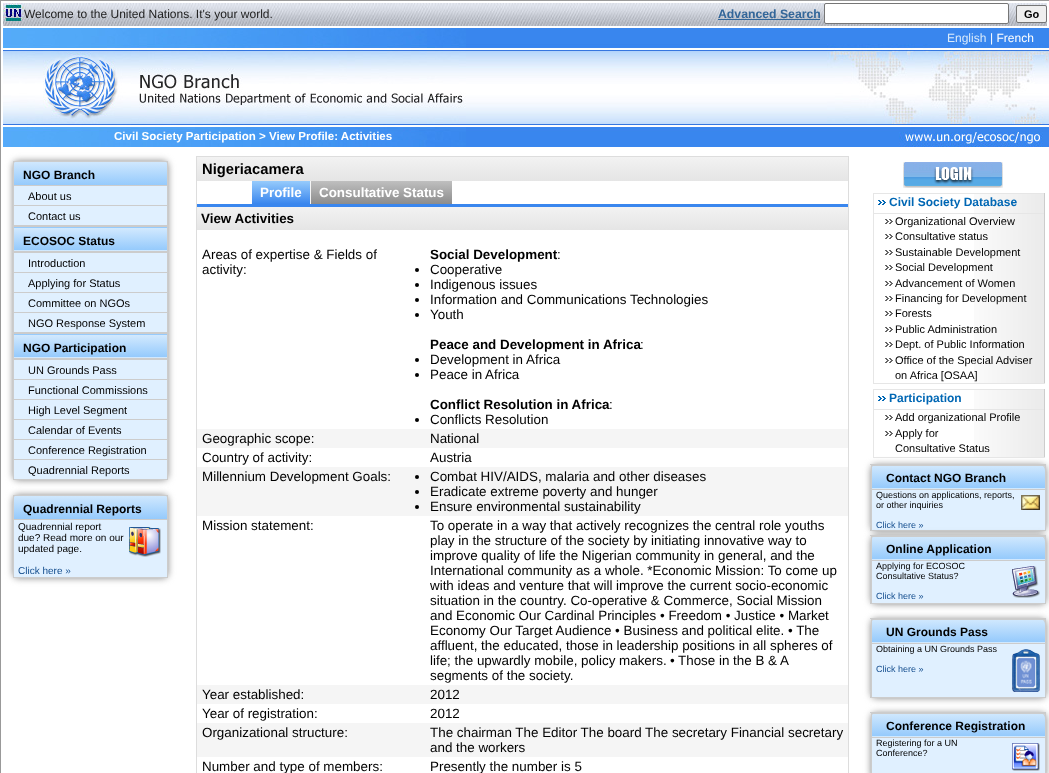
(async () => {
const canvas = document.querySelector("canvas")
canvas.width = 1049
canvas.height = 773
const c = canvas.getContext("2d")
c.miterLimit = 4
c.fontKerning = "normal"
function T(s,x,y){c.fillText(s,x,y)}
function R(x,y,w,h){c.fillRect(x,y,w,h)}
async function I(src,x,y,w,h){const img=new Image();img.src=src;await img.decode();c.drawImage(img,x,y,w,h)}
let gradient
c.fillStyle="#fff"
R(0,0,1049,773)
c.fillStyle="#999"
R(0,0,1049,1)
R(0,0,1,773)
await I("1.png",3,3,1044,23)
await I("2.png",3,3,21,18)
c.font="12px Liberation Sans"
c.fillStyle="#1e1e1e"
T("Welcome to the United Nations. It's your world.",24,18)
c.font="bold 12.25px Liberation Sans"
c.fillStyle="#369"
T("Advanced Search",718,18)
R(718,19,102,1)
c.fillStyle="#fff"
c.beginPath()
c.roundRect(824.5,3.5,184,20,1.5)
c.fill()
c.strokeStyle="#767676"
c.stroke()
c.fillStyle="#efefef"
c.beginPath()
c.roundRect(1016.5,5.5,30,17,1.5)
c.fill()
c.stroke()
c.font="bold 11px Liberation Sans"
c.fillStyle="#000"
T("Go",1024,18)
await I("3.png",466,28,583,119)
await I("4.png",3,28,463,119)
await I("5.png",827,44,222,103)
c.font="12px Liberation Sans"
c.fillStyle="#d9eafb"
T("English",947,42)
c.fillStyle="#fff"
T("| French",990,42)
c.font="bold 11.55px Liberation Sans"
T("Civil Society Participation > View Profile: Activities",114,140)
c.fillStyle="#888"
c.filter="blur(3.5px)"
c.beginPath()
c.roundRect(13,161,155,319,5)
c.fill()
c.filter="none"
gradient = c.createLinearGradient(91,161,91,185)
gradient.addColorStop(0,"#d2e9fe")
gradient.addColorStop(1,"#95cafc")
c.fillStyle = gradient
c.beginPath()
c.roundRect(13,161,155,24,[5,5,0,0])
c.fill()
c.fillStyle="#ccc"
R(13,161,155,1)
gradient = c.createLinearGradient(91,206,91,228)
gradient.addColorStop(0,"#d2e9fe")
gradient.addColorStop(1,"#95cafc")
c.fillStyle = gradient
R(13,227,155,1)
gradient = c.createLinearGradient(91,250,91,272)
gradient.addColorStop(0,"#d2e9fe")
gradient.addColorStop(1,"#95cafc")
c.fillStyle = gradient
R(13,250,155,1)
gradient = c.createLinearGradient(91,313,91,335)
gradient.addColorStop(0,"#d2e9fe")
gradient.addColorStop(1,"#95cafc")
c.fillStyle = gradient
R(13,334,155,1)
gradient = c.createLinearGradient(91,357,91,379)
gradient.addColorStop(0,"#d2e9fe")
gradient.addColorStop(1,"#95cafc")
c.fillStyle = gradient
R(13,357,155,1)
c.fillStyle="#ccc"
R(167,161,1,319)
R(13,479,155,1)
R(13,161,1,319)
c.font="bold 12px Liberation Sans"
c.fillStyle="#000"
T("NGO Branch",23,179)
c.fillStyle="#ccc"
R(13,185,155,1)
c.fillStyle="#e0f0ff"
R(14,186,153,19)
c.font="11px Liberation Sans"
c.fillStyle="#000"
T("About us",28,200)
c.fillStyle="#ccc"
R(13,205,155,1)
c.fillStyle="#e0f0ff"
R(14,206,153,19)
c.fillStyle="#000"
T("Contact us",28,220)
gradient = c.createLinearGradient(91,228,91,250)
gradient.addColorStop(0,"#d2e9fe")
gradient.addColorStop(1,"#95cafc")
c.fillStyle = gradient
R(14,228,153,22)
c.fillStyle="#ccc"
R(12,225,157,2)
R(12,251,157,2)
c.font="bold 12px Liberation Sans"
c.fillStyle="#000"
T("ECOSOC Status",23,245)
c.fillStyle="#e0f0ff"
R(14,253,153,19)
c.font="11px Liberation Sans"
c.fillStyle="#000"
T("Introduction",28,267)
c.fillStyle="#ccc"
R(13,272,155,1)
c.fillStyle="#e0f0ff"
R(14,273,153,19)
c.fillStyle="#000"
T("Applying for Status",28,287)
c.fillStyle="#ccc"
R(13,292,155,1)
c.fillStyle="#e0f0ff"
R(14,293,153,19)
c.fillStyle="#000"
T("Committee on NGOs",28,307)
c.fillStyle="#ccc"
R(13,312,155,1)
c.fillStyle="#e0f0ff"
R(14,313,153,19)
c.fillStyle="#000"
T("NGO Response System",28,327)
gradient = c.createLinearGradient(91,335,91,357)
gradient.addColorStop(0,"#d2e9fe")
gradient.addColorStop(1,"#95cafc")
c.fillStyle = gradient
R(14,335,153,22)
c.fillStyle="#ccc"
R(12,332,157,2)
R(12,358,157,2)
c.font="bold 12px Liberation Sans"
c.fillStyle="#000"
T("NGO Participation",23,352)
c.fillStyle="#e0f0ff"
R(14,360,153,19)
c.font="11px Liberation Sans"
c.fillStyle="#000"
T("UN Grounds Pass",28,374)
c.fillStyle="#ccc"
R(13,379,155,1)
c.fillStyle="#e0f0ff"
R(14,380,153,19)
c.fillStyle="#000"
T("Functional Commissions",28,394)
c.fillStyle="#ccc"
R(13,399,155,1)
c.fillStyle="#e0f0ff"
R(14,400,153,19)
c.fillStyle="#000"
T("High Level Segment",28,414)
c.fillStyle="#ccc"
R(13,419,155,1)
c.fillStyle="#e0f0ff"
R(14,420,153,19)
c.fillStyle="#000"
T("Calendar of Events",28,434)
c.fillStyle="#ccc"
R(13,439,155,1)
c.fillStyle="#e0f0ff"
R(14,440,153,19)
c.fillStyle="#000"
T("Conference Registration",28,454)
c.fillStyle="#ccc"
R(13,459,155,1)
c.fillStyle="#e0f0ff"
R(14,460,153,19)
c.fillStyle="#000"
T("Quadrennial Reports",28,474)
c.fillStyle="#888"
c.filter="blur(3.5px)"
c.beginPath()
c.roundRect(13,495,155,83,5)
c.fill()
c.filter="none"
gradient = c.createLinearGradient(91,495,91,519)
gradient.addColorStop(0,"#d2e9fe")
gradient.addColorStop(1,"#95cafc")
c.fillStyle = gradient
c.beginPath()
c.roundRect(13,495,155,24,[5,5,0,0])
c.fill()
c.fillStyle="#ccc"
R(13,495,155,1)
R(167,495,1,83)
R(13,577,155,1)
R(13,495,1,83)
c.font="bold 12px Liberation Sans"
c.fillStyle="#000"
T("Quadrennial Reports",23,513)
c.fillStyle="#ccc"
R(13,519,155,1)
c.fillStyle="#e0f0ff"
R(14,520,153,57)
c.font="10px Liberation Sans"
c.fillStyle="#000"
T("Quadrennial report",18,530)
await I("6.png",129,527,32,30)
T("due? Read more on our",18,541)
T("updated page.",18,552)
c.fillStyle="#124c8d"
T("Click here »",18,574)
c.strokeStyle="#ddd"
c.strokeRect(196.5,156.5,652,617)
gradient = c.createLinearGradient(523,157,523,181)
gradient.addColorStop(0,"#f2f2f2")
gradient.addColorStop(1,"#e5e5e5")
c.fillStyle = gradient
R(197,157,651,24)
c.font="bold 14.75px Liberation Sans"
c.fillStyle="#000"
T("Nigeriacamera",202,174)
c.fillStyle="#3986ee"
R(197,204,651,3)
gradient = c.createLinearGradient(281,181,281,204)
gradient.addColorStop(0,"#96cbfc")
gradient.addColorStop(1,"#3986ee")
c.fillStyle = gradient
R(252,181,58,23)
c.fillStyle="#f5f5f5"
R(310,181,1,23)
c.font="bold 13.4px Liberation Sans"
c.fillStyle="#fff"
T("Profile",260,197)
gradient = c.createLinearGradient(382,181,382,204)
gradient.addColorStop(0,"#bfbfbf")
gradient.addColorStop(1,"#8c8c8c")
c.fillStyle = gradient
R(311,181,141,23)
c.fillStyle="#fff"
T("Consultative Status",319,197)
gradient = c.createLinearGradient(523,207,523,230)
gradient.addColorStop(0,"#f2f2f2")
gradient.addColorStop(1,"#e5e5e5")
c.fillStyle = gradient
R(197,207,651,23)
c.fillStyle="#000"
T("View Activities",201,223)
c.font="13.4px Liberation Sans"
T("Areas of expertise & Fields of",202,259)
T("activity:",202,274)
c.font="bold 13.4px Liberation Sans"
T("Social Development",430,259)
c.font="13.4px Liberation Sans"
T(":",557,259)
c.beginPath()
c.arc(417,270,2,0,7)
c.fill()
T("Cooperative",430,274)
c.beginPath()
c.arc(417,285,2,0,7)
c.fill()
T("Indigenous issues",430,289)
c.beginPath()
c.arc(417,300,2,0,7)
c.fill()
T("Information and Communications Technologies",430,304)
c.beginPath()
c.arc(417,315,2,0,7)
c.fill()
T("Youth",430,319)
c.font="bold 13.4px Liberation Sans"
T("Peace and Development in Africa",430,349)
c.font="13.4px Liberation Sans"
T(":",640,349)
c.beginPath()
c.arc(417,360,2,0,7)
c.fill()
T("Development in Africa",430,364)
c.beginPath()
c.arc(417,375,2,0,7)
c.fill()
T("Peace in Africa",430,379)
c.font="bold 13.4px Liberation Sans"
T("Conflict Resolution in Africa",430,409)
c.font="13.4px Liberation Sans"
T(":",609,409)
c.beginPath()
c.arc(417,420,2,0,7)
c.fill()
T("Conflicts Resolution",430,424)
c.fillStyle="#f5f5f5"
R(197,429,651,19)
c.fillStyle="#000"
T("Geographic scope:",202,443)
T("National",430,443)
T("Country of activity:",202,462)
T("Austria",430,462)
c.fillStyle="#f5f5f5"
R(197,467,651,49)
c.fillStyle="#000"
T("Millennium Development Goals:",202,481)
c.beginPath()
c.arc(417,477,2,0,7)
c.fill()
T("Combat HIV/AIDS, malaria and other diseases",430,481)
c.beginPath()
c.arc(417,492,2,0,7)
c.fill()
T("Eradicate extreme poverty and hunger",430,496)
c.beginPath()
c.arc(417,507,2,0,7)
c.fill()
T("Ensure environmental sustainability",430,511)
T("Mission statement:",202,530)
T("To operate in a way that actively recognizes the central role youths",430,530)
T("play in the structure of the society by initiating innovative way to",430,545)
T("improve quality of life the Nigerian community in general, and the",430,560)
T("International community as a whole. *Economic Mission: To come up",430,575)
T("with ideas and venture that will improve the current socio-economic",430,590)
T("situation in the country. Co-operative & Commerce, Social Mission",430,605)
T("and Economic Our Cardinal Principles • Freedom • Justice • Market",430,620)
T("Economy Our Target Audience • Business and political elite. • The",430,635)
T("affluent, the educated, those in leadership positions in all spheres of",430,650)
T("life; the upwardly mobile, policy makers.",430,665)
T("•",670,665)
T("Those in the B & A",678,665)
T("segments of the society.",430,680)
c.fillStyle="#f5f5f5"
R(197,685,651,19)
c.fillStyle="#000"
T("Year established:",202,699)
T("2012",430,699)
T("Year of registration:",202,718)
T("2012",430,718)
c.fillStyle="#f5f5f5"
R(197,723,651,34)
c.fillStyle="#000"
T("Organizational structure:",202,737)
T("The chairman The Editor The board The secretary Financial secretary",430,737)
T("and the workers",430,752)
T("Number and type of members:",202,771)
T("Presently the number is 5",430,771)
await I("7.png",903,162,100,26)
await I("8.png",974,194,70,189)
c.fillStyle="#ccc"
R(1044,193,1,191)
c.fillStyle="#e6e6e6"
R(873,383,172,1)
R(873,193,1,191)
R(874,193,170,1)
R(874,213,170,1)
await I("9.png",878,200,8,5)
c.font="bold 12px Liberation Sans"
c.fillStyle="#0067b4"
T("Civil Society Database",889,206)
await I("10.png",885,219,8,5)
c.font="11px Liberation Sans"
c.fillStyle="#000"
T("Organizational Overview",895,225)
await I("10.png",885,234,8,5)
T("Consultative status",895,240)
await I("10.png",885,250,8,5)
T("Sustainable Development",895,256)
await I("10.png",885,265,8,5)
T("Social Development",895,271)
await I("10.png",885,281,8,5)
T("Advancement of Women",895,287)
await I("10.png",885,296,8,5)
T("Financing for Development",895,302)
await I("10.png",885,311,8,5)
T("Forests",895,317)
await I("10.png",885,327,8,5)
T("Public Administration",895,333)
await I("10.png",885,342,8,5)
T("Dept. of Public Information",895,348)
await I("10.png",885,358,8,5)
T("Office of the Special Adviser",895,364)
T("on Africa [OSAA]",895,379)
c.fillStyle="#888"
c.filter="blur(3.5px)"
c.beginPath()
c.roundRect(871,465,175,66,5)
c.fill()
c.filter="none"
await I("11.png",974,390,70,67)
c.fillStyle="#ccc"
R(1044,389,1,69)
c.fillStyle="#e6e6e6"
R(873,457,172,1)
R(873,389,1,69)
R(874,389,170,1)
R(874,409,170,1)
await I("9.png",878,396,8,5)
c.font="bold 12px Liberation Sans"
c.fillStyle="#0067b4"
T("Participation",889,402)
await I("10.png",885,415,8,5)
c.font="11px Liberation Sans"
c.fillStyle="#000"
T("Add organizational Profile",895,421)
await I("10.png",885,431,8,5)
T("Apply for",895,437)
T("Consultative Status",895,452)
gradient = c.createLinearGradient(958,465,958,488)
gradient.addColorStop(0,"#d2e9fe")
gradient.addColorStop(1,"#95cafc")
c.fillStyle = gradient
c.beginPath()
c.roundRect(871,465,174,23,[5,5,0,0])
c.fill()
c.fillStyle="#ccc"
R(871,465,175,1)
R(1045,465,1,66)
gradient = c.createLinearGradient(958,488,958,511)
gradient.addColorStop(0,"#d2e9fe")
gradient.addColorStop(1,"#95cafc")
c.fillStyle = gradient
R(871,488,174,1)
c.fillStyle="#ccc"
R(871,465,1,66)
R(870,464,176,1)
c.font="bold 12px Liberation Sans"
c.fillStyle="#000"
T("Contact NGO Branch",886,482)
c.fillStyle="#ccc"
R(870,489,176,1)
R(870,530,176,1)
c.fillStyle="#e0f0ff"
R(872,490,173,40)
c.fillStyle="#ccc"
R(870,525,1,6)
c.font="9px Liberation Sans"
c.fillStyle="#000"
T("Questions on applications, reports,",876,498)
await I("12.png",1021,495,19,15)
T("or other inquiries",876,508)
c.fillStyle="#888"
c.filter="blur(3.5px)"
c.beginPath()
c.roundRect(871,536,175,68,5)
c.fill()
c.filter="none"
c.fillStyle="#124c8d"
T("Click here »",876,528)
gradient = c.createLinearGradient(958,536,958,559)
gradient.addColorStop(0,"#d2e9fe")
gradient.addColorStop(1,"#95cafc")
c.fillStyle = gradient
c.beginPath()
c.roundRect(871,536,174,23,[5,5,0,0])
c.fill()
c.fillStyle="#ccc"
R(871,536,175,1)
R(1045,536,1,68)
gradient = c.createLinearGradient(958,559,958,582)
gradient.addColorStop(0,"#d2e9fe")
gradient.addColorStop(1,"#95cafc")
c.fillStyle = gradient
R(871,559,174,1)
c.fillStyle="#ccc"
R(871,536,1,68)
R(870,535,176,1)
c.font="bold 12px Liberation Sans"
c.fillStyle="#000"
T("Online Application",886,553)
c.fillStyle="#ccc"
R(870,560,176,1)
R(870,603,176,1)
c.fillStyle="#e0f0ff"
R(872,561,173,42)
c.fillStyle="#ccc"
R(870,598,1,6)
c.font="9px Liberation Sans"
c.fillStyle="#000"
T("Applying for ECOSOC",876,569)
await I("13.png",1012,566,28,32)
T("Consultative Status?",876,579)
c.fillStyle="#124c8d"
T("Click here »",876,599)
c.fillStyle="#888"
c.filter="blur(3.5px)"
c.beginPath()
c.roundRect(871,619,175,79,5)
c.fill()
c.filter="none"
gradient = c.createLinearGradient(958,619,958,642)
gradient.addColorStop(0,"#d2e9fe")
gradient.addColorStop(1,"#95cafc")
c.fillStyle = gradient
c.beginPath()
c.roundRect(871,619,174,23,[5,5,0,0])
c.fill()
c.fillStyle="#ccc"
R(871,619,175,1)
R(1045,619,1,79)
gradient = c.createLinearGradient(958,642,958,665)
gradient.addColorStop(0,"#d2e9fe")
gradient.addColorStop(1,"#95cafc")
c.fillStyle = gradient
R(871,642,174,1)
c.fillStyle="#ccc"
R(871,619,1,79)
R(870,618,176,1)
c.font="bold 12px Liberation Sans"
c.fillStyle="#000"
T("UN Grounds Pass",886,636)
c.fillStyle="#ccc"
R(870,643,176,1)
R(870,697,176,1)
c.fillStyle="#e0f0ff"
R(872,644,173,53)
c.fillStyle="#ccc"
R(870,692,1,6)
c.font="9px Liberation Sans"
c.fillStyle="#000"
T("Obtaining a UN Grounds Pass",876,652)
await I("14.png",1012,649,28,43)
c.fillStyle="#124c8d"
T("Click here »",876,672)
c.fillStyle="#888"
c.filter="blur(3.5px)"
c.beginPath()
c.roundRect(871,713,175,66,5)
c.fill()
c.filter="none"
gradient = c.createLinearGradient(958,713,958,736)
gradient.addColorStop(0,"#d2e9fe")
gradient.addColorStop(1,"#95cafc")
c.fillStyle = gradient
c.beginPath()
c.roundRect(871,713,174,23,[5,5,0,0])
c.fill()
c.fillStyle="#ccc"
R(871,713,175,1)
R(1045,713,1,60)
gradient = c.createLinearGradient(958,736,958,759)
gradient.addColorStop(0,"#d2e9fe")
gradient.addColorStop(1,"#95cafc")
c.fillStyle = gradient
R(871,736,174,1)
c.fillStyle="#ccc"
R(871,713,1,60)
R(870,712,176,1)
c.font="bold 12px Liberation Sans"
c.fillStyle="#000"
T("Conference Registration",886,730)
c.fillStyle="#ccc"
R(870,737,176,1)
c.fillStyle="#e0f0ff"
R(872,738,173,35)
c.font="9px Liberation Sans"
c.fillStyle="#000"
T("Registering for a UN",876,746)
await I("15.png",1012,743,28,28)
T("Conference?",876,756)
})()
